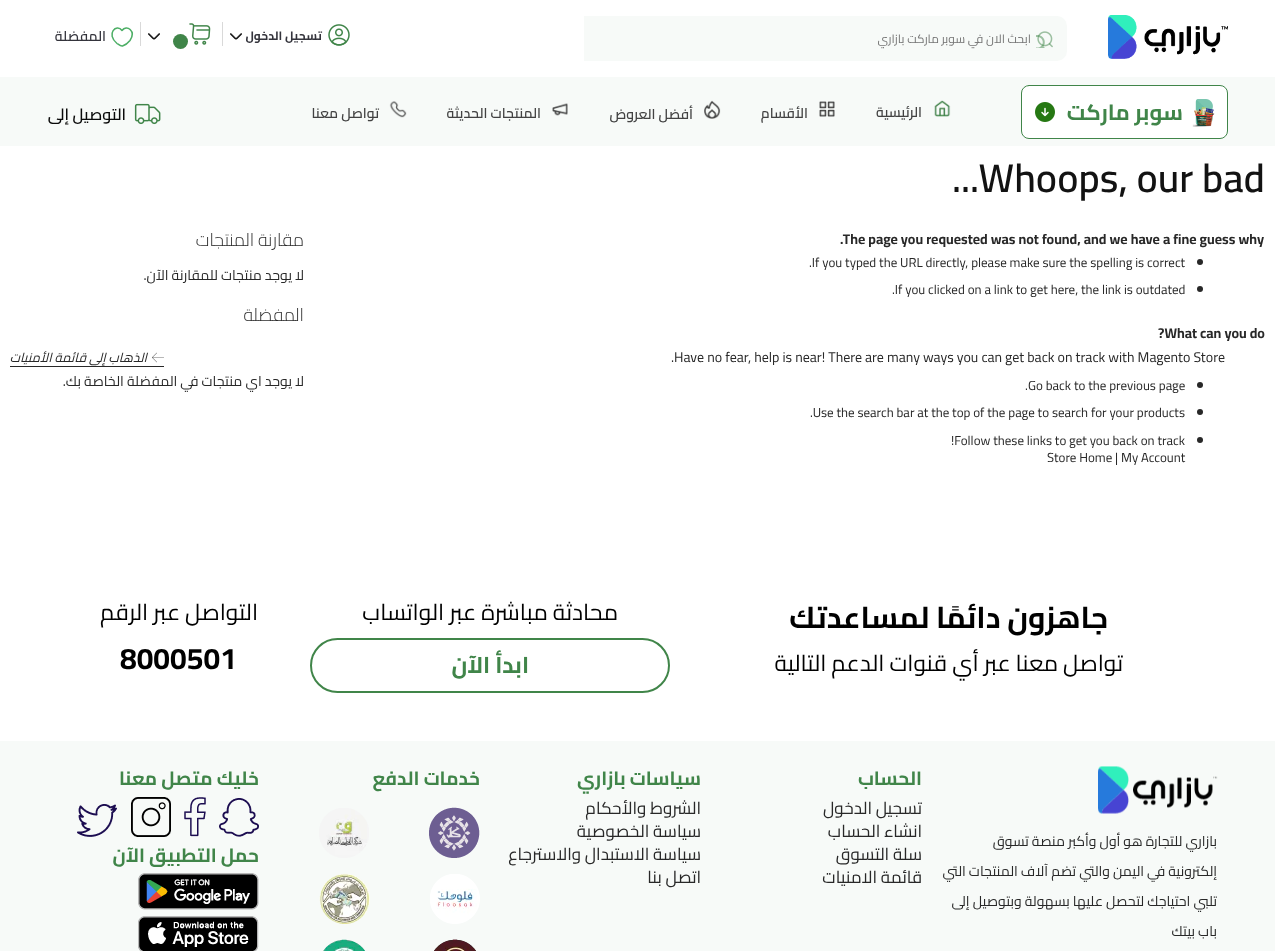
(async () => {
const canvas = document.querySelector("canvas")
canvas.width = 1275
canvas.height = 951
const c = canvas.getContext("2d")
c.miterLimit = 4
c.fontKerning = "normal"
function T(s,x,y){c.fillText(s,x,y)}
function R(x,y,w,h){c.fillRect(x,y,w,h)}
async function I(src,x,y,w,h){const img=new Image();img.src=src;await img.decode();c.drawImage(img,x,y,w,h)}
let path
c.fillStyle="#fff"
R(0,0,1275,951)
await I("1.png",1108,15,120,44)
c.fillStyle="#f7faf8"
c.beginPath()
c.roundRect(584,16,483,45,[0,10,10,0])
c.fill()
await I("2.png",1037,31,16,17)
await I("3.png",1036,35,9,13)
c.direction="rtl"
c.font="12px Cairo"
c.fillStyle="#757575"
T("ابحث الان في سوبر ماركت بازاري",1031,43)
c.fillStyle="#d9d9d9"
R(222,22,1,24)
await I("4.png",328,24,22,22)
c.font="bold 12px Cairo"
c.fillStyle="#34343c"
T("تسجيل الدخول",322,40)
await I("5.png",230,33,12,7)
c.fillStyle="#d9d9d9"
R(140,22,1,24)
await I("6.png",189,23,22,22)
c.fillStyle="#408549"
c.beginPath()
c.arc(180.5,41.5,7.5,0,7)
c.fill()
await I("5.png",148,33,12,7)
path = new Path2D("M122.5 46c-1.5 .5-4-1.5-5.5-2.5c-11.5-9.5-.5-20.5 5-13c4.5-6.5 14.5 .5 8 10c-2 2.5-4.5 4.5-7.5 5.5z")
c.strokeStyle="#4cae65"
c.lineWidth=1.5
c.lineCap="round"
c.lineJoin="round"
c.stroke(path)
c.font="600 14px Cairo"
c.fillStyle="#34343c"
T("المفضلة",106,41)
c.fillStyle="#f7faf8"
R(0,77,1275,69)
c.fillStyle="#fff"
c.beginPath()
c.roundRect(1021.5,85.5,206,53,7.5)
c.fill()
c.strokeStyle="#408549"
c.lineWidth=1
c.lineJoin="miter"
c.stroke()
await I("7.png",1192,99,23,28)
c.font="bold 22px Cairo"
c.fillStyle="#408549"
T("سوبر ماركت",1183,120)
await I("8.png",1035,102,20,20)
await I("9.png",934,100,17,17)
c.font="600 14px Cairo"
c.fillStyle="#424242"
T("الرئيسية",922,117)
await I("10.png",819,101,16,16)
T("الأقسام",808,118)
await I("11.png",704,100,17,19)
T("أفضل العروض",693,119)
await I("12.png",552,103,16,13)
T("المنتجات الحديثة",541,118)
await I("13.png",389,101,18,17)
T("تواصل معنا",379,118)
await I("14.png",134,103,27,22)
c.font="600 16px Cairo"
c.fillStyle="#0a0a0a"
T("التوصيل إلى",126,120)
c.direction="ltr"
c.font="600 40px Cairo"
c.fillStyle="#121212"
T("...Whoops, our bad",952,192)
c.font="bold 14px Cairo"
c.fillStyle="#282828"
T(".The page you requested was not found, and we have a fine guess why",840,244)
c.beginPath()
c.arc(1200,262,3,0,7)
c.fill()
c.font="13px Cairo"
T(".If you typed the URL directly, please make sure the spelling is correct",809,267)
c.beginPath()
c.arc(1200,289,3,0,7)
c.fill()
T(".If you clicked on a link to get here, the link is outdated",892,294)
c.font="bold 14px Cairo"
T("?What can you do",1158,338)
c.font="14px Cairo"
T(".Have no fear, help is near! There are many ways you can get back on track with Magento Store",671,362)
c.beginPath()
c.arc(1200,385,3,0,7)
c.fill()
c.font="13px Cairo"
T("Go back to the previous page",1028,390)
T(".",1025,390)
c.beginPath()
c.arc(1200,412,3,0,7)
c.fill()
T(".Use the search bar at the top of the page to search for your products",810,417)
c.beginPath()
c.arc(1200,440,3,0,7)
c.fill()
T("!Follow these links to get you back on track",951,445)
T("Store Home | My Account",1047,462)
c.direction="rtl"
c.font="300 18px Cairo"
T("مقارنة المنتجات",304,246)
c.font="14px Cairo"
T("لا يوجد منتجات للمقارنة الآن.",304,280)
c.font="300 18px Cairo"
T("المفضلة",304,321)
R(10,366,154,1)
await I("15.png",152,352,12,11)
c.font="italic 13px Cairo"
T("الذهاب إلى قائمة الأمنيات",147,362)
c.font="14px Cairo"
T("لا يوجد اي منتجات في المفضلة الخاصة بك.",304,386)
c.font="bold 30px Cairo"
c.fillStyle="#000"
T("جاهزون دائمًا لمساعدتك",1108,628)
c.font="22.75px Cairo"
T("تواصل معنا عبر أي قنوات الدعم التالية",1123,671)
T("محادثة مباشرة عبر الواتساب",618,620)
c.beginPath()
c.roundRect(311,639,358,53,26.5)
c.lineWidth=2
c.stroke()
c.font="bold 22.75px Cairo"
c.fillStyle="#408549"
T("ابدأ الآن",529,673)
c.font="22.75px Cairo"
c.fillStyle="#000"
T("التواصل عبر الرقم",258,620)
c.direction="ltr"
c.font="bold 30px Cairo"
T("8000501",120,669)
c.fillStyle="#f7faf8"
R(0,741,1275,210)
await I("16.png",1098,766,120,48)
c.direction="rtl"
c.font="14px Cairo"
c.fillStyle="#282828"
T("بازاري للتجارة هو أول وأكبر منصة تسوق",1217,846)
T("إلكترونية في اليمن والتي تضم آلاف المنتجات التي",1217,876)
T("تلبي احتياجك لتحصل عليها بسهولة وبتوصيل إلى",1217,906)
T("باب بيتك",1217,936)
c.font="bold 19px Cairo"
c.fillStyle="#408549"
T("الحساب",922,785)
c.font="17px Cairo"
c.fillStyle="#282828"
T("تسجيل الدخول",922,814)
T("انشاء الحساب",922,837)
T("سلة التسوق",922,860)
T("قائمة الامنيات",922,883)
c.font="bold 19px Cairo"
c.fillStyle="#408549"
T("سياسات بازاري",701,785)
c.font="17px Cairo"
c.fillStyle="#282828"
T("الشروط والأحكام",701,814)
T("سياسة الخصوصية",701,837)
T("سياسة الاستبدال والاسترجاع",701,860)
T("اتصل بنا",701,883)
c.font="bold 19px Cairo"
c.fillStyle="#408549"
T("خدمات الدفع",480,785)
await I("17.png",429,807,51,51)
await I("18.png",319,808,50,50)
await I("19.png",430,874,50,50)
await I("20.png",319,873,51,51)
await I("21.png",434,939,42,12)
await I("22.png",323,939,42,12)
T("خليك متصل معنا",259,785)
await I("23.png",219,798,40,39)
await I("24.png",184,797,22,40)
await I("25.png",131,797,40,40)
await I("26.png",77,804,40,33)
T("حمل التطبيق الآن",259,862)
await I("27.png",138,873,121,37)
await I("28.png",138,916,121,35)
})()
